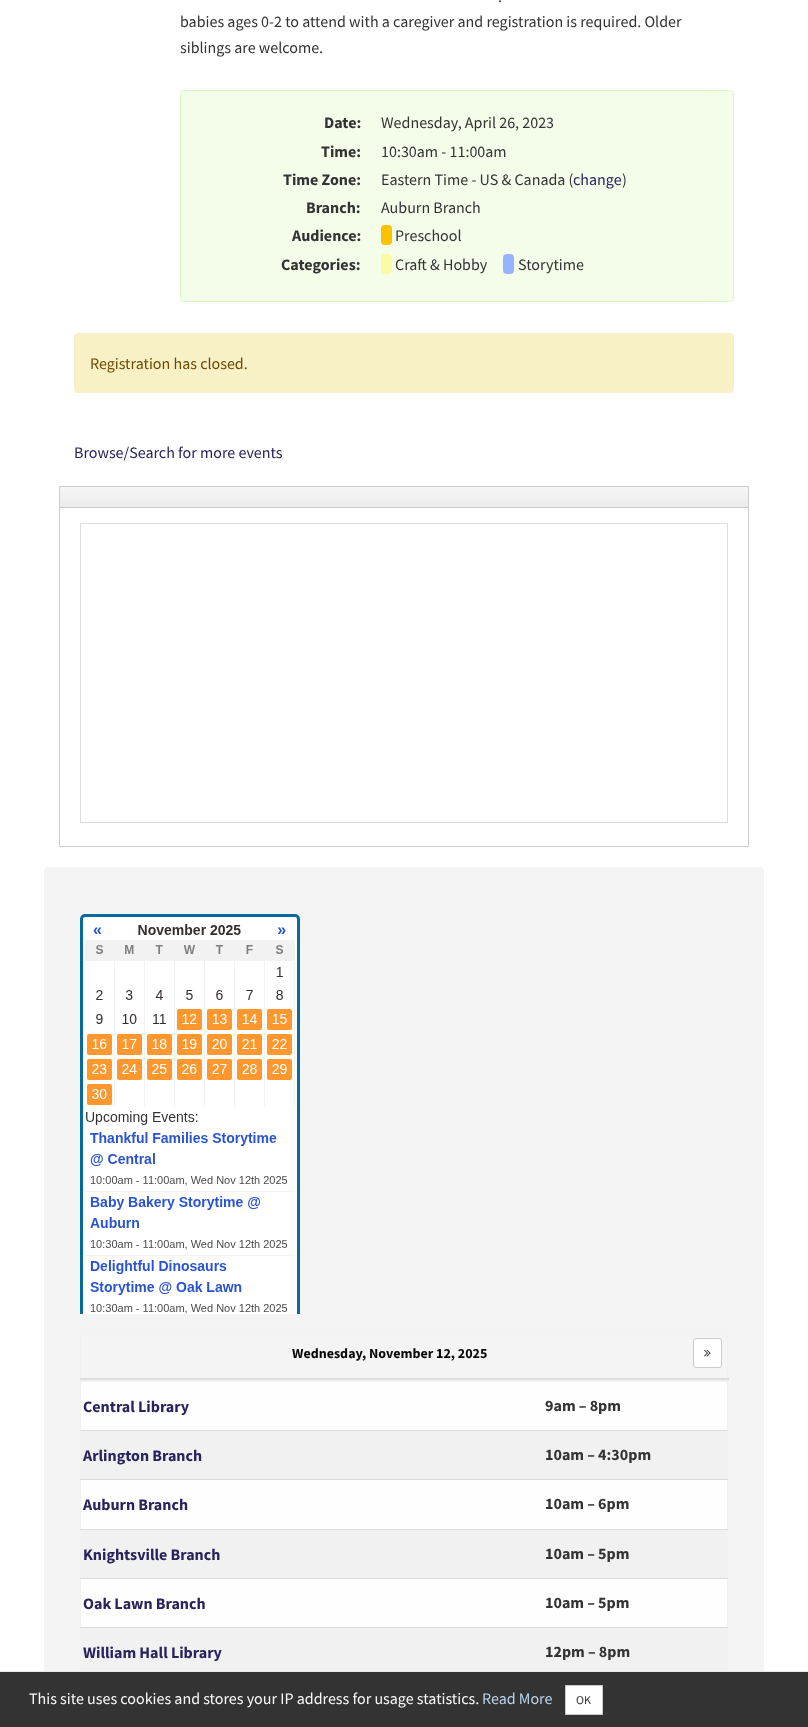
(async () => {
const canvas = document.querySelector("canvas")
canvas.width = 808
canvas.height = 1727
const c = canvas.getContext("2d")
c.miterLimit = 4
c.fontKerning = "normal"
function T(s,x,y){c.fillText(s,x,y)}
function R(x,y,w,h){c.fillRect(x,y,w,h)}
function Q(x,y,w,h,r){c.beginPath();c.roundRect(x,y,w,h,r);c.fill()}
async function I(src,x,y,w,h){const img=new Image();img.src=src;await img.decode();c.drawImage(img,x,y,w,h)}
let gradient
c.fillStyle="#fff"
R(0,0,808,1727)
c.font="16px Source Sans Pro"
c.fillStyle="#333"
T(".",498,2)
T("babies ages 0-2 to attend with a caregiver and registration is required. Older",180,27)
T("siblings are welcome.",180,53)
c.fillStyle="#f3fdea"
c.beginPath()
c.roundRect(180.5,90.5,553,211,3.5)
c.fill()
c.strokeStyle="#daf9c2"
c.stroke()
c.font="bold 16px Source Sans Pro"
c.fillStyle="#333"
T("Date:",324,128)
c.font="16px Source Sans Pro"
T("Wednesday, April 26, 2023",381,128)
c.font="bold 16px Source Sans Pro"
T("Time:",321,157)
c.font="16px Source Sans Pro"
T("10:30am - 11:00am",381,157)
c.font="bold 16px Source Sans Pro"
T("Time Zone:",283,185)
c.font="16px Source Sans Pro"
T("Eastern Time - US & Canada (",381,185)
c.fillStyle="#28235d"
T("change",573,185)
c.fillStyle="#333"
T(")",622,185)
c.font="bold 16px Source Sans Pro"
T("Branch:",306,213)
c.font="16px Source Sans Pro"
T("Auburn Branch",381,213)
c.font="bold 16px Source Sans Pro"
T("Audience:",292,241)
c.fillStyle="#fcc200"
Q(381,225,11,20,4)
c.font="16px Source Sans Pro"
c.fillStyle="#333"
T("Preschool",395,241)
c.font="bold 16px Source Sans Pro"
T("Categories:",281,270)
c.fillStyle="#fafaa2"
Q(381,254,11,20,4)
c.font="16px Source Sans Pro"
c.fillStyle="#333"
T("Craft & Hobby",395,270)
c.fillStyle="#97b2ff"
Q(503,254,11,20,4)
c.fillStyle="#333"
T("Storytime",518,270)
c.fillStyle="#f9f1c6"
c.beginPath()
c.roundRect(74.5,333.5,659,59,3.5)
c.fill()
c.strokeStyle="#faebcc"
c.stroke()
c.fillStyle="#6c4a00"
T("Registration has closed.",90,369)
c.fillStyle="#28235d"
T("Browse/Search for more events",74,458)
c.strokeStyle="#ccc"
c.strokeRect(59.5,486.5,689,360)
gradient = c.createLinearGradient(404,487,404,507)
gradient.addColorStop(0,"#f5f5f5")
gradient.addColorStop(1,"#ebebeb")
c.fillStyle = gradient
R(60,487,688,20)
c.fillStyle="#ccc"
R(60,507,688,1)
c.strokeStyle="#ddd"
c.strokeRect(80.5,523.5,647,299)
c.fillStyle="#f4f4f4"
Q(44,867,720,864,4)
await I("1.png",80,914,220,400)
c.fillStyle="#f1f1f1"
R(80,1332,648,1)
R(727,1332,1,49)
R(80,1380,648,1)
R(80,1332,1,49)
c.fillStyle="#ddd"
R(80,1378,649,2)
c.font="bold 14px Source Sans Pro"
c.fillStyle="#0a0a0a"
T("Wednesday, November 12, 2025",292,1358)
c.fillStyle="#fff"
c.beginPath()
c.roundRect(693.5,1338.5,28,29,2.5)
c.fill()
c.strokeStyle="#ccc"
c.stroke()
await I("2.png",704,1349,7,8)
c.fillStyle="#fefefe"
R(81,1382,646,245)
c.fillStyle="#f1f1f1"
R(80,1381,648,1)
R(727,1381,1,296)
R(80,1381,1,296)
c.fillStyle="#ddd"
R(80,1430,648,1)
c.font="bold 16px Source Sans Pro"
c.fillStyle="#28235d"
T("Central Library",83,1412)
c.fillStyle="#333"
T("9am – 8pm",545,1411)
c.fillStyle="#f1f1f1"
R(81,1431,646,48)
c.fillStyle="#ddd"
R(80,1479,648,1)
c.fillStyle="#28235d"
T("Arlington Branch",83,1461)
c.fillStyle="#333"
T("10am – 4:30pm",545,1460)
c.fillStyle="#ddd"
R(80,1529,648,1)
c.fillStyle="#28235d"
T("Auburn Branch",83,1510)
c.fillStyle="#333"
T("10am – 6pm",545,1509)
c.fillStyle="#f1f1f1"
R(81,1530,646,48)
c.fillStyle="#ddd"
R(80,1578,648,1)
c.fillStyle="#28235d"
T("Knightsville Branch",83,1560)
c.fillStyle="#333"
T("10am – 5pm",545,1559)
c.fillStyle="#ddd"
R(80,1627,648,1)
c.fillStyle="#28235d"
T("Oak Lawn Branch",83,1609)
c.fillStyle="#333"
T("10am – 5pm",545,1608)
c.fillStyle="#f1f1f1"
R(81,1628,646,43)
c.fillStyle="#28235d"
T("William Hall Library",83,1658)
c.fillStyle="#333"
T("12pm – 8pm",545,1657)
R(0,1672,808,55)
c.fillStyle="#e7e7e7"
R(0,1671,808,1)
c.font="16px Source Sans Pro"
c.fillStyle="#f8f8f8"
T("This site uses cookies and stores your IP address for usage statistics.",29,1704)
c.fillStyle="#b9d3eb"
T("Read More",482,1704)
c.fillStyle="#fff"
c.beginPath()
c.rect(565.5,1685.5,37,29)
c.fill()
c.stroke()
c.font="12px Source Sans Pro"
c.fillStyle="#333"
T("OK",576,1704)
})()
